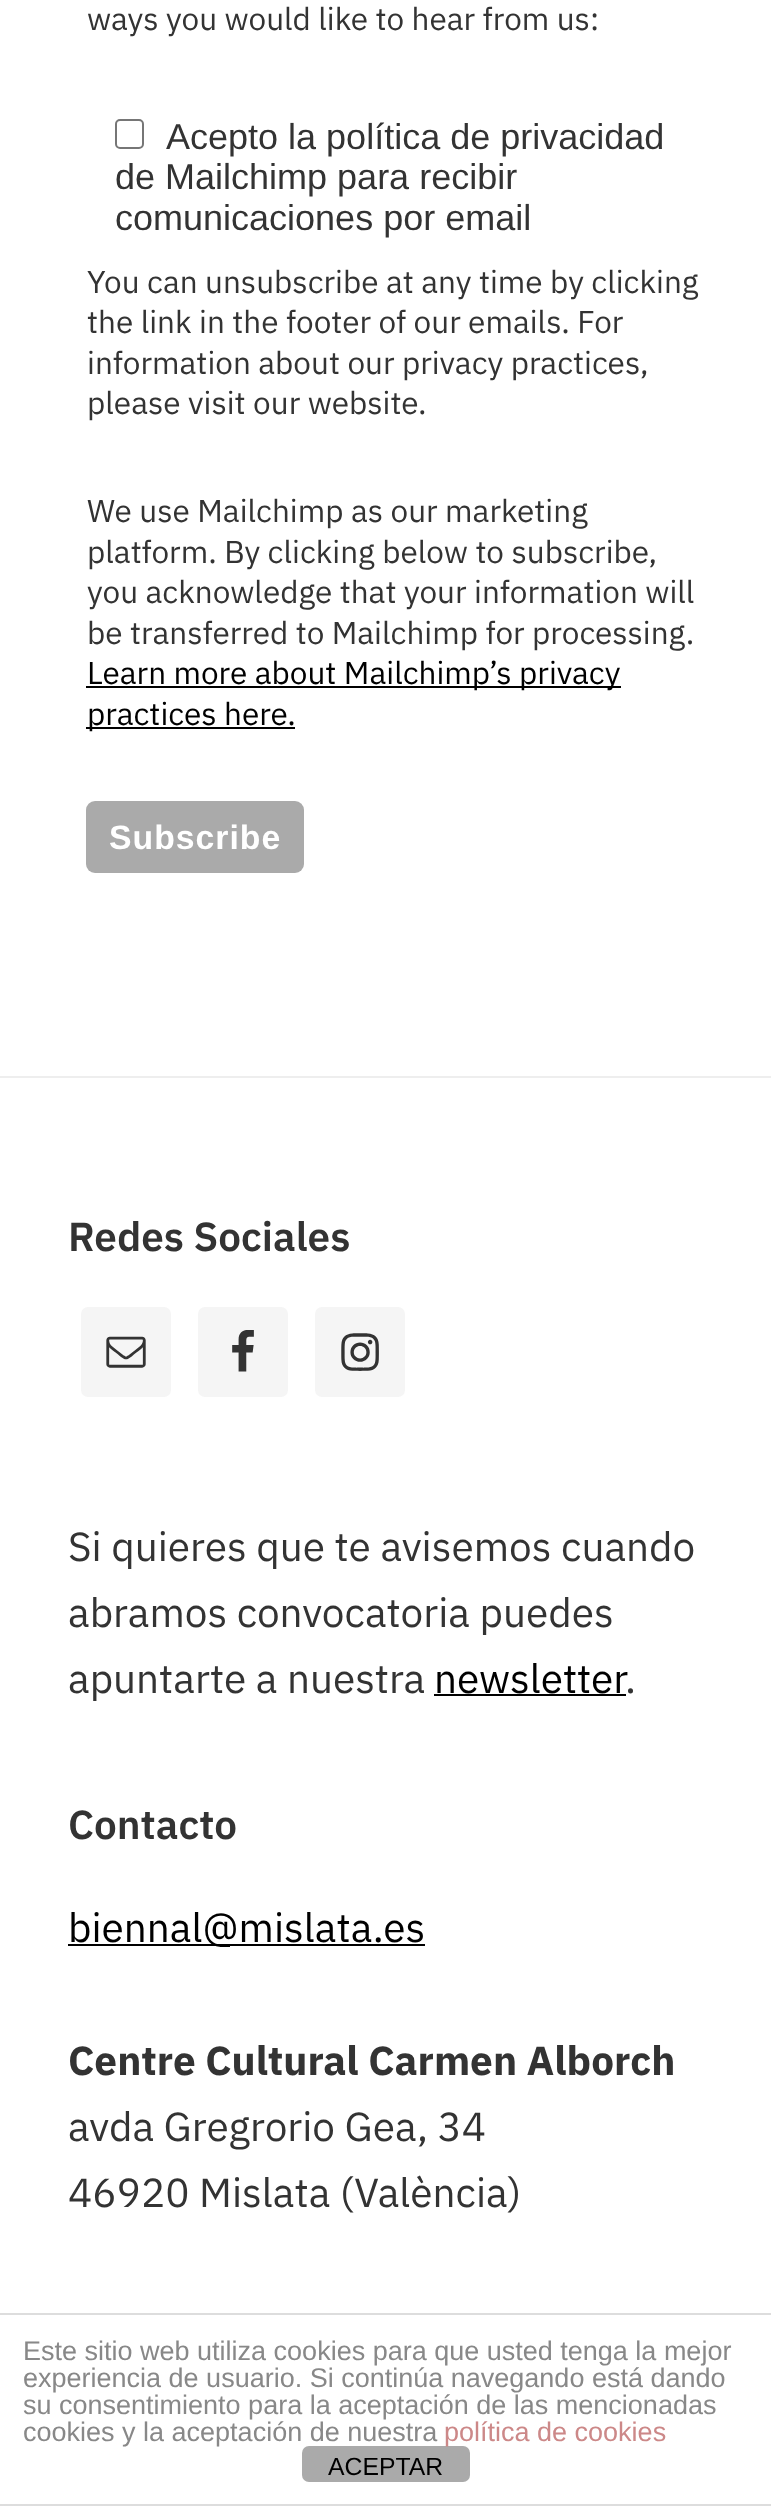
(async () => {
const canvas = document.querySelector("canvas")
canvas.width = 771
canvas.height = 2506
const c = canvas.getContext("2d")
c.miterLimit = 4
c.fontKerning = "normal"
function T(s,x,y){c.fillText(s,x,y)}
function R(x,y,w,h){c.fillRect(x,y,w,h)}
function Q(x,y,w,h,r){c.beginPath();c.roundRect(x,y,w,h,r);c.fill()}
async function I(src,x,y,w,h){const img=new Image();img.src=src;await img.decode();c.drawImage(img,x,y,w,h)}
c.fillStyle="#fff"
R(0,0,771,2506)
c.font="31.5px IBM Plex Sans"
c.fillStyle="#333"
T("ways you would like to hear from us:",87,30)
c.beginPath()
c.roundRect(116,120,27,28,4)
c.strokeStyle="#767676"
c.lineWidth=2
c.stroke()
c.font="36px Liberation Sans"
T("Acepto la política de privacidad",166,149)
T("de Mailchimp para recibir",115,189)
T("comunicaciones por email",115,230)
c.font="31.5px IBM Plex Sans"
T("You can unsubscribe at any time by clicking",87,293)
T("the link in the footer of our emails. For",87,333)
T("information about our privacy practices,",87,374)
T("please visit our website.",87,414)
T("We use Mailchimp as our marketing",87,522)
T("platform. By clicking below to subscribe,",87,563)
T("you acknowledge that your information will",87,603)
T("be transferred to Mailchimp for processing.",87,644)
c.fillStyle="#000"
R(86,686,535,2)
T("Learn more about Mailchimp’s privacy",87,684)
R(86,727,209,2)
T("practices here.",87,725)
c.fillStyle="#aaa"
Q(86,801,218,72,9)
c.letterSpacing="1px"
c.font="bold 33.75px Liberation Sans"
c.fillStyle="#fff"
T("Subscribe",109,849)
c.fillStyle="#eee"
R(0,1076,771,2)
c.letterSpacing="0px"
c.font="600 40.5px IBM Plex Sans"
c.fillStyle="#333"
T("Redes Sociales",68,1251)
c.fillStyle="#f5f5f5"
Q(81,1307,90,90,7)
await I("1.png",106,1336,40,32)
Q(198,1307,90,90,7)
await I("2.png",232,1330,22,42)
Q(315,1307,90,90,7)
await I("3.png",341,1333,38,38)
c.font="40.5px IBM Plex Sans"
c.fillStyle="#333"
T("Si quieres que te avisemos cuando",68,1561)
T("abramos convocatoria puedes",68,1627)
T("apuntarte a nuestra",68,1693)
c.fillStyle="#000"
T("newsletter",434,1693)
R(434,1694,192,2)
c.fillStyle="#333"
T(".",625,1693)
c.font="600 40.5px IBM Plex Sans"
T("Contacto",68,1839)
c.fillStyle="#000"
R(68,1944,357,2)
c.font="40.5px IBM Plex Sans"
T("biennal@mislata.es",68,1942)
c.font="bold 40.5px IBM Plex Sans"
c.fillStyle="#333"
T("Centre Cultural Carmen Alborch",68,2075)
c.font="40.5px IBM Plex Sans"
T("avda Gregrorio Gea, 34",68,2141)
T("46920 Mislata (València)",68,2207)
c.fillStyle="#ddd"
R(0,2313,771,2)
R(0,2504,771,2)
c.font="27px Liberation Sans"
c.fillStyle="#888"
T("Este sitio web utiliza cookies para que usted tenga la mejor",23,2360)
T("experiencia de usuario. Si continúa navegando está dando",23,2387)
T("su consentimiento para la aceptación de las mencionadas",23,2414)
c.fillStyle="#aaa"
Q(302,2446,168,36,7)
c.fillStyle="#888"
T("cookies y la aceptación de nuestra",23,2441)
c.fillStyle="#c88"
T("política de cookies",444,2441)
c.font="24.75px Liberation Sans"
c.fillStyle="#000"
T("ACEPTAR",328,2475)
})()
